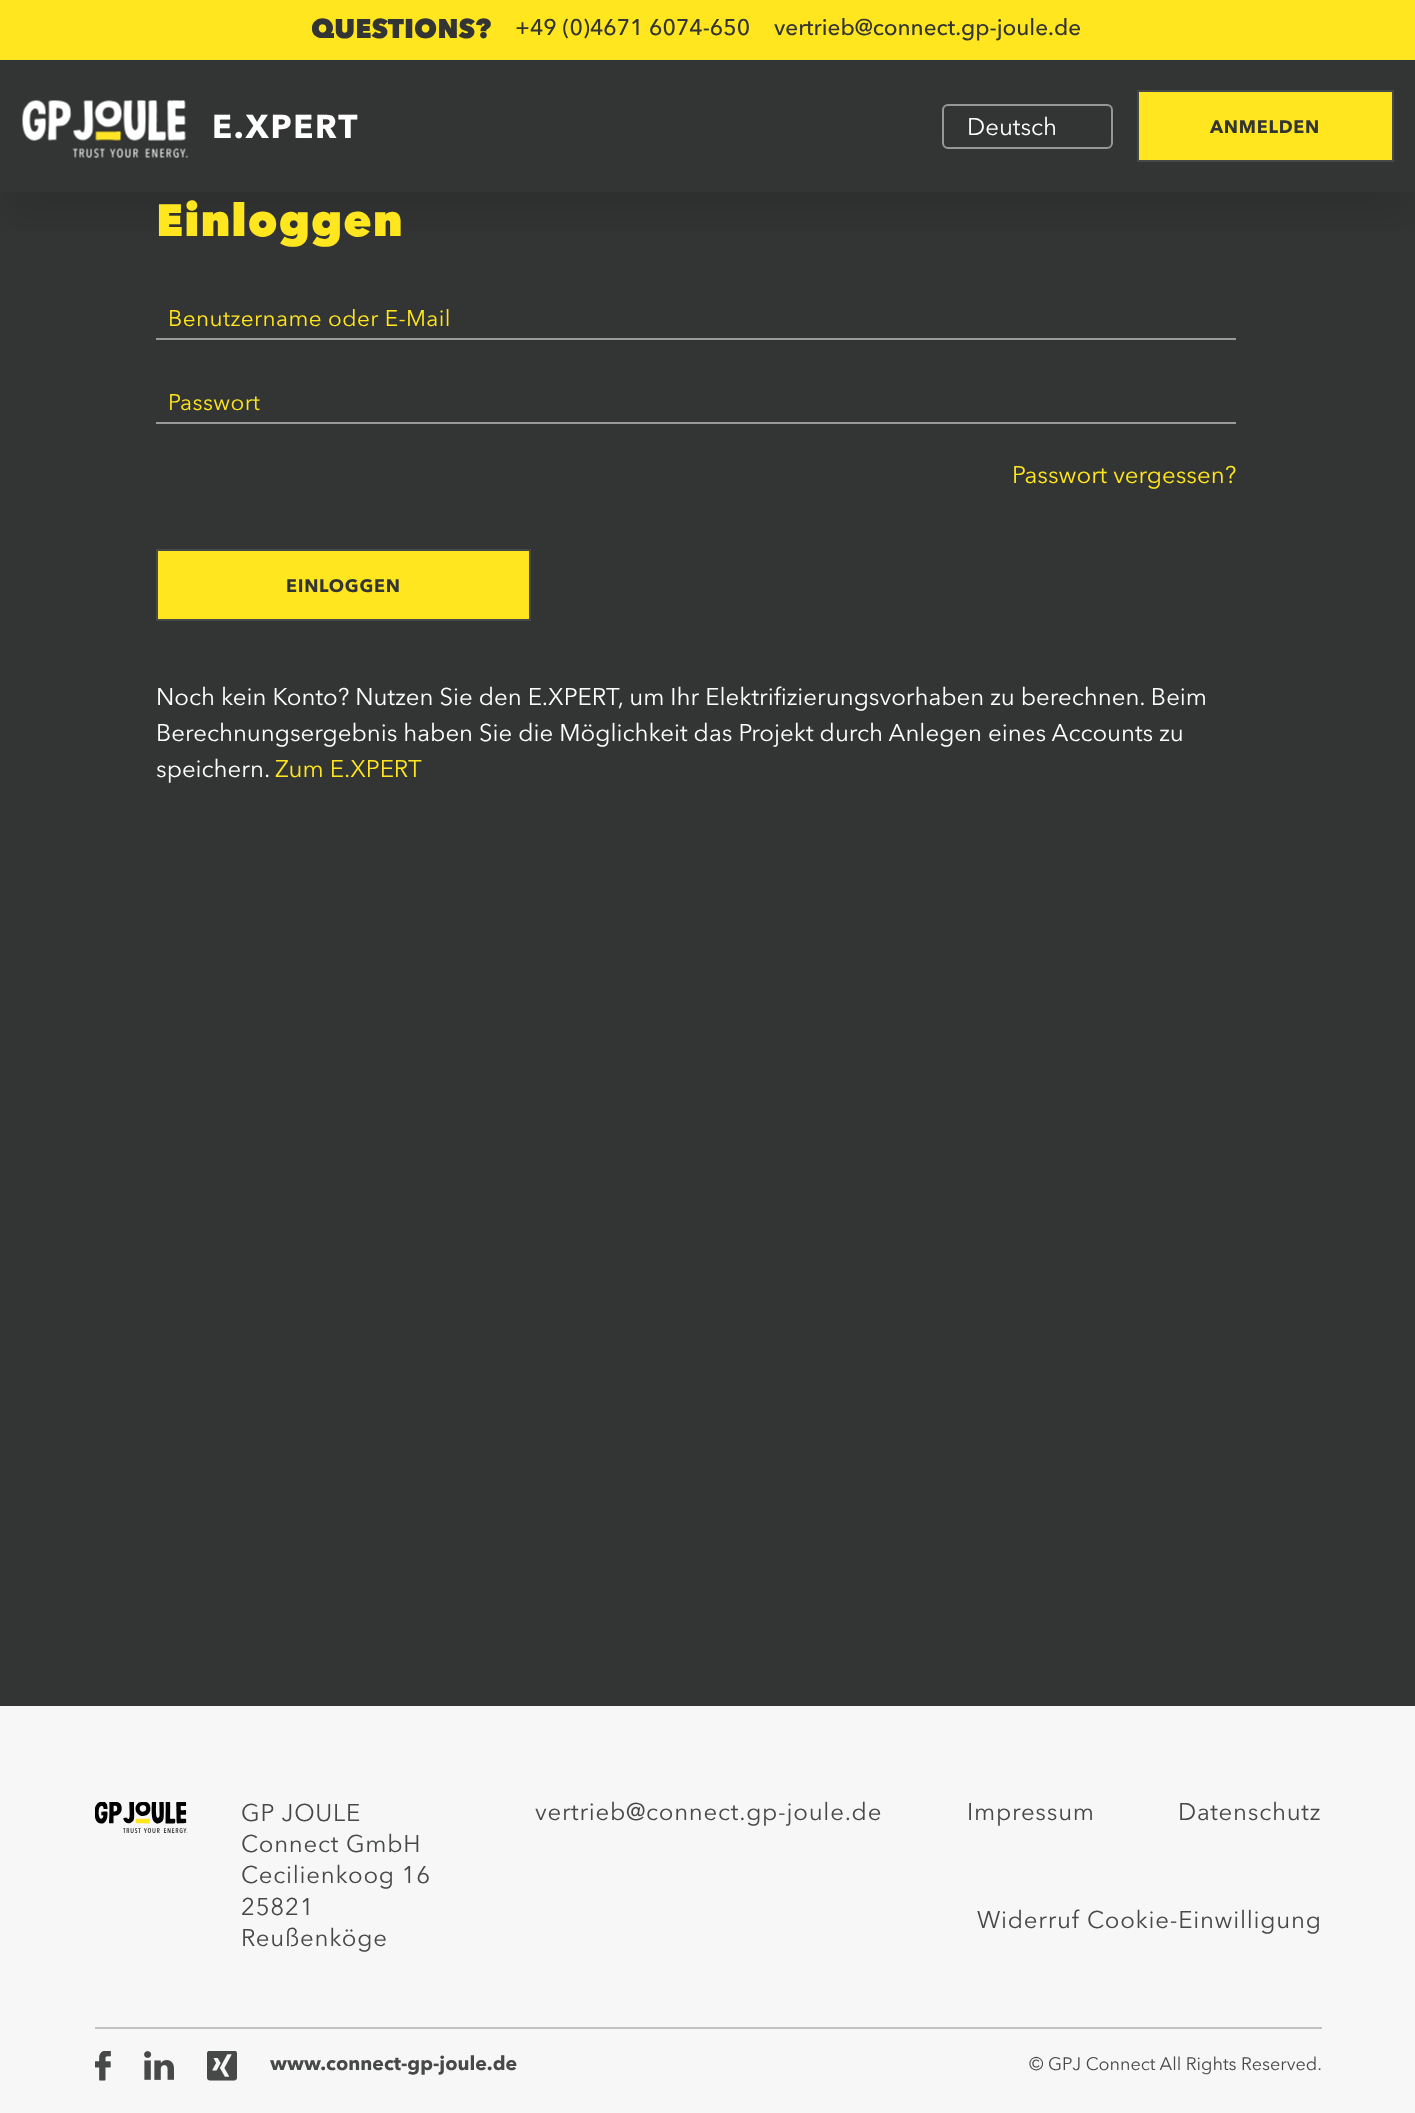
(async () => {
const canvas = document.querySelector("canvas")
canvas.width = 1415
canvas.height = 2113
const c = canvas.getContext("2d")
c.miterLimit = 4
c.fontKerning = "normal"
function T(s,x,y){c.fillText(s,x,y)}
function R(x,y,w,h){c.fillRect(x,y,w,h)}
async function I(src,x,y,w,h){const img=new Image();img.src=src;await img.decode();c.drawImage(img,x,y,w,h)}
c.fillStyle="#333434"
R(0,0,1415,2113)
c.save()
c.beginPath()
c.rect(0,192,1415,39)
c.clip()
c.fillStyle="#0000001a"
c.filter="blur(19px)"
c.beginPath()
c.rect(8,98,1401,117)
c.fill()
c.filter="none"
c.restore()
c.fillStyle="#ffe61e"
R(0,0,1415,60)
c.font="900 27px Avenir Next"
c.fillStyle="#333434"
T("QUESTIONS?",311,38)
c.font="500 22.5px Avenir Next"
T("+49 (0)4671 6074-650",515,35)
T("vertrieb@connect.gp-joule.de",774,35)
await I("1.png",22,100,166,58)
c.letterSpacing="1.75px"
c.font="bold 33px Avenir Next"
c.fillStyle="#fff"
T("E.XPERT",212,138)
c.beginPath()
c.roundRect(943,105,169,43,5)
c.strokeStyle="#979797"
c.lineWidth=2
c.stroke()
c.letterSpacing="0px"
c.font="24px Avenir Next"
T("Deutsch",967,135)
c.fillStyle="#ffe61e"
c.beginPath()
c.rect(1138,91,255,70)
c.fill()
c.strokeStyle="#474848"
c.stroke()
c.letterSpacing="0.75px"
c.font="bold 18px Avenir Next"
c.fillStyle="#333434"
T("ANMELDEN",1210,133)
c.letterSpacing="1px"
c.font="900 45px Avenir Next"
c.fillStyle="#ffe61e"
T("Einloggen",156,236)
c.letterSpacing="0.4px"
c.font="22.5px Avenir Next"
T("Benutzername oder E-Mail",168,326)
c.fillStyle="#9b9999"
R(156,338,1080,2)
c.fillStyle="#ffe61e"
T("Passwort",168,410)
c.fillStyle="#9b9999"
R(156,422,1080,2)
c.letterSpacing="0px"
c.font="24px Avenir Next"
c.fillStyle="#ffe61e"
T("Passwort vergessen?",1012,483)
c.beginPath()
c.rect(157,550,373,70)
c.fill()
c.stroke()
c.letterSpacing="0.75px"
c.font="bold 18px Avenir Next"
c.fillStyle="#333434"
T("EINLOGGEN",286,592)
c.letterSpacing="0px"
c.font="24px Avenir Next"
c.fillStyle="#fff"
T("Noch kein Konto? Nutzen Sie den E.XPERT, um Ihr Elektrifizierungsvorhaben zu berechnen. Beim",156,705)
T("Berechnungsergebnis haben Sie die Möglichkeit das Projekt durch Anlegen eines Accounts zu",156,741)
T("speichern.",156,777)
c.fillStyle="#ffe61e"
T("Zum E.XPERT",275,777)
c.fillStyle="#f7f7f7"
R(0,1706,1415,407)
await I("2.png",95,1802,93,31)
c.letterSpacing="0.75px"
c.fillStyle="#474848"
T("GP JOULE",241,1821)
T("Connect GmbH",241,1852)
T("Cecilienkoog 16",241,1883)
T("25821",241,1915)
T("Reußenköge",241,1946)
T("vertrieb@connect.gp-joule.de",535,1820)
T("Impressum",967,1820)
T("Datenschutz",1178,1820)
T("Widerruf Cookie-Einwilligung",977,1928)
c.fillStyle="#c1c2c2"
R(95,2027,1227,2)
await I("3.png",95,2051,16,30)
await I("4.png",144,2051,30,29)
await I("5.png",207,2051,30,30)
c.letterSpacing="0px"
c.font="bold 19.5px Avenir Next"
c.fillStyle="#474848"
T("www.connect-gp-joule.de",270,2070)
c.font="18px Avenir Next"
T("© GPJ Connect All Rights Reserved.",1029,2070)
})()
